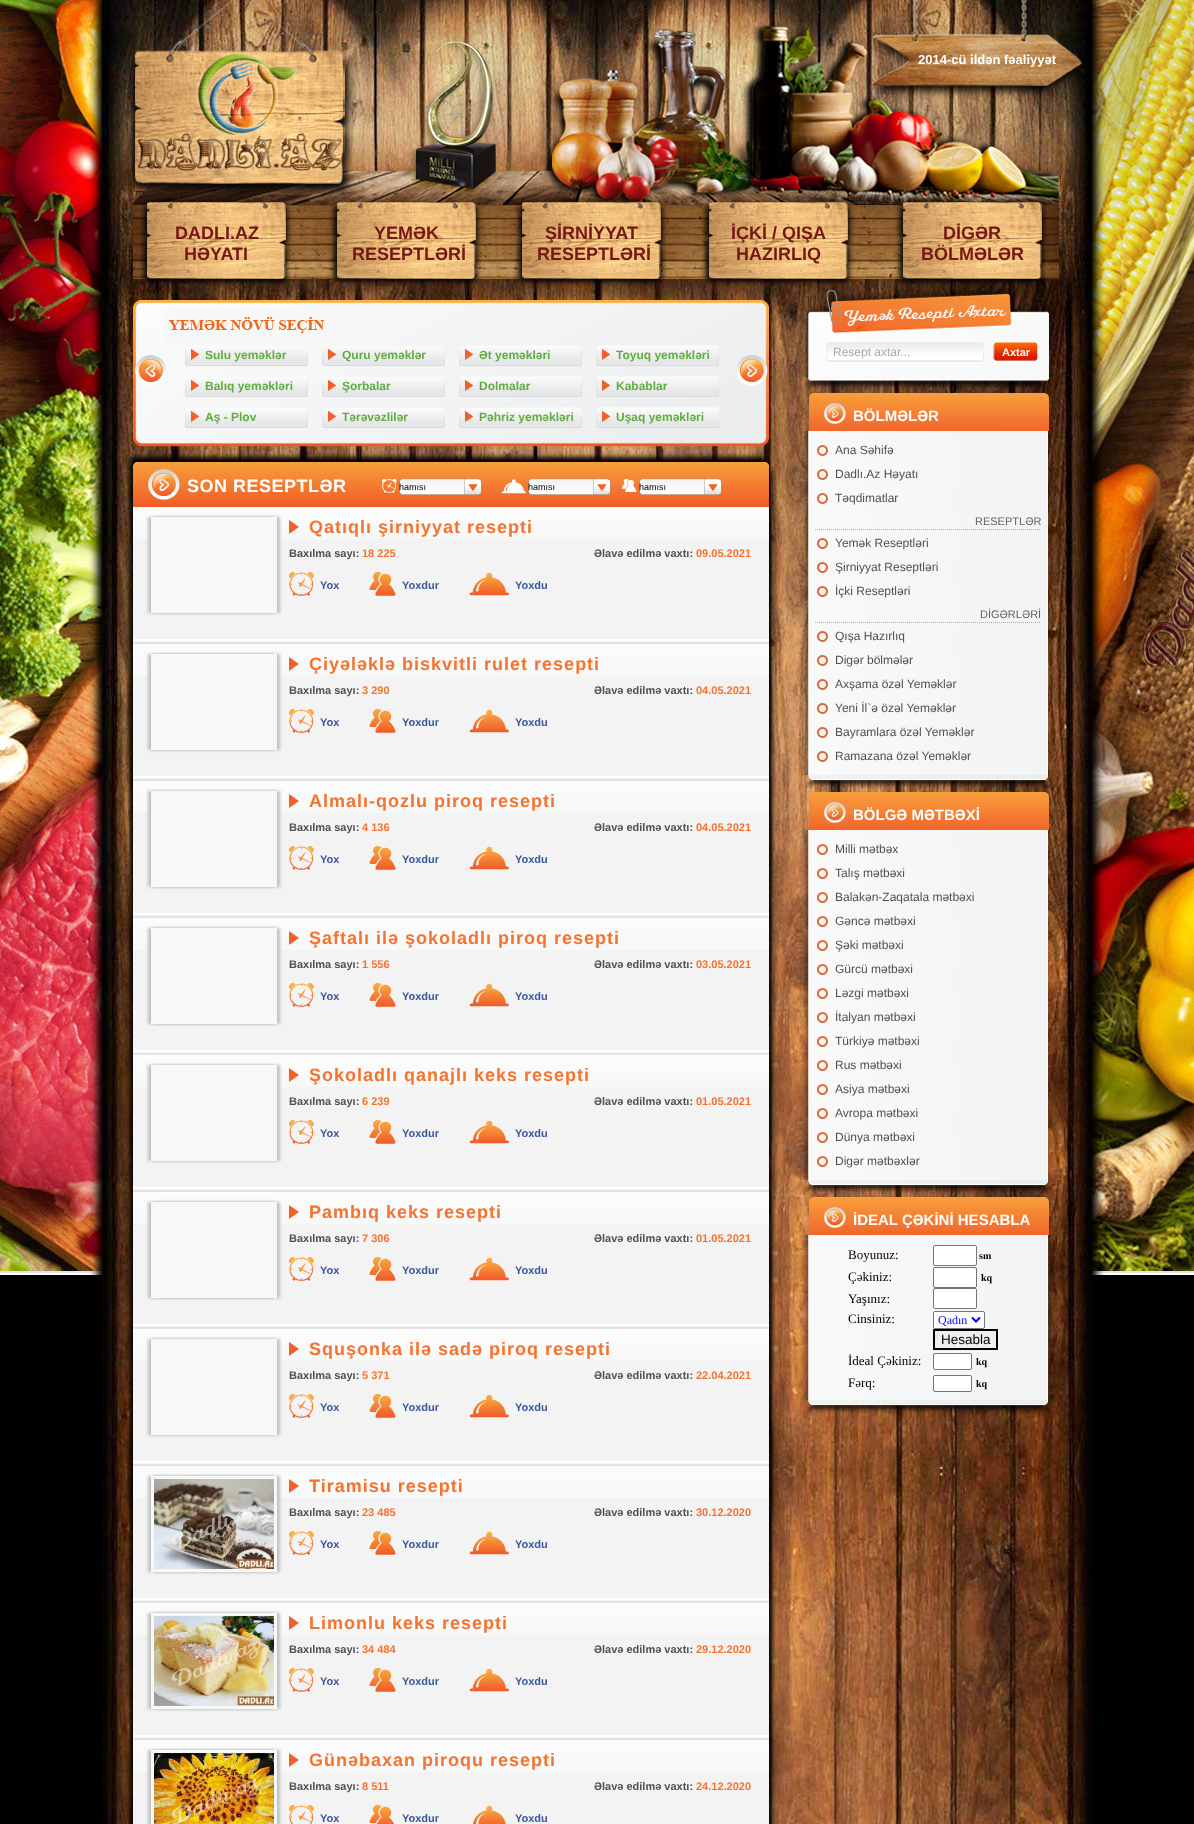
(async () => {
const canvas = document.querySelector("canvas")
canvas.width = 1194
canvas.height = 1824
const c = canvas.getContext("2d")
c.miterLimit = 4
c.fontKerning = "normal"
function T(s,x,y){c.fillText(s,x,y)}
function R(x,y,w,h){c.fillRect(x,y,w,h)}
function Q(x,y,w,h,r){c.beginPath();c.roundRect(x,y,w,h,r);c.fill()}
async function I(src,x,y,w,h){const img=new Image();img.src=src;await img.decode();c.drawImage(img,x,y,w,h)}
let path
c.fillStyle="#000"
R(0,0,1194,1824)
await I("1.png",0,0,1194,1275)
await I("2.png",102,1268,990,556)
c.save()
path = new Path2D("M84 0h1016v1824h-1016zm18 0h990v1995h-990z")
c.clip(path,"evenodd")
c.filter="blur(4px)"
c.beginPath()
c.rect(97,-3,990,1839)
c.fill()
c.filter="none"
c.restore()
c.save()
path = new Path2D("M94 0h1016v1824h-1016zm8 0h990v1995h-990z")
c.clip(path,"evenodd")
c.filter="blur(4px)"
c.beginPath()
c.rect(107,-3,990,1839)
c.fill()
c.filter="none"
c.restore()
await I("3.png",102,0,990,1268)
await I("5.png",133,22,927,183)
await I("4.png",124,0,233,198)
await I("6.png",871,0,212,100)
c.font="bold 13px Liberation Sans"
c.fillStyle="#fff"
T("2014-cü ildən fəaliyyət",918,64)
await I("7.png",133,167,926,119)
c.font="bold 18px Liberation Sans"
c.fillStyle="#741816"
T("DADLI.AZ",175,239)
T("HƏYATI",184,260)
T("YEMƏK",374,239)
T("RESEPTLƏRİ",352,260)
T("ŞİRNİYYAT",545,239)
T("RESEPTLƏRİ",537,260)
T("İÇKİ / QIŞA",731,239)
T("HAZIRLIQ",736,260)
T("DİGƏR",943,239)
T("BÖLMƏLƏR",921,260)
await I("8.png",133,300,636,147)
await I("9.png",135,355,32,30)
await I("10.png",185,345,123,21)
c.font="bold 12px Liberation Sans"
c.fillStyle="#60ad41"
T("Sulu yeməklər",205,359)
await I("11.png",322,346,123,20)
T("Quru yeməklər",342,359)
await I("12.png",459,345,123,21)
T("Ət yeməkləri",479,359)
await I("13.png",596,345,123,21)
T("Toyuq yeməkləri",616,359)
await I("14.png",185,377,123,20)
T("Balıq yeməkləri",205,390)
await I("15.png",322,377,123,20)
T("Şorbalar",342,390)
await I("16.png",459,376,123,21)
T("Dolmalar",479,390)
await I("17.png",596,376,123,21)
T("Kabablar",616,390)
await I("18.png",185,408,123,20)
T("Aş - Plov",205,421)
await I("19.png",322,407,123,21)
T("Tərəvəzlilər",342,421)
await I("20.png",459,407,123,21)
T("Pəhriz yeməkləri",479,421)
await I("21.png",596,407,123,21)
T("Uşaq yeməkləri",616,421)
await I("22.png",737,355,31,31)
c.fillStyle="#000"
c.filter="blur(2.5px)"
c.beginPath()
c.roundRect(130,457,636,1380,5)
c.fill()
c.filter="none"
c.filter="blur(3.5px)"
c.beginPath()
c.roundRect(136,470,636,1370,5)
c.fill()
c.filter="none"
c.fillStyle="#f3f3f4"
Q(133,462,636,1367,5)
await I("23.png",133,462,636,45)
await I("24.png",148,469,32,31)
c.letterSpacing="0.5px"
c.font="bold 18px Liberation Sans"
c.fillStyle="#fff"
T("SON RESEPTLƏR",187,492)
await I("25.png",382,479,15,14)
await I("26.png",399,478,83,17)
c.letterSpacing="0px"
c.font="9px Liberation Sans"
c.fillStyle="#000"
T("hamısı",399,490)
await I("27.png",502,479,24,15)
await I("26.png",528,478,83,17)
T("hamısı",528,490)
await I("28.png",622,479,15,13)
await I("26.png",639,478,83,17)
T("hamısı",639,490)
await I("29.png",133,507,636,32)
c.fillStyle="#bfc0c0"
c.filter="blur(1.5px)"
c.beginPath()
c.rect(148,517,126,96)
c.fill()
c.filter="none"
c.filter="blur(1.5px)"
c.beginPath()
c.rect(154,517,126,96)
c.fill()
c.filter="none"
c.fillStyle="#f7f8f8"
R(151,517,126,96)
c.fillStyle="#f1602a"
path = new Path2D("M289 534v-14l10 7z")
c.fill(path)
c.letterSpacing="1px"
c.font="bold 18px Liberation Sans"
c.fillStyle="#f3732f"
T("Qatıqlı şirniyyat resepti",309,533)
c.letterSpacing="0px"
c.font="bold 11px Liberation Sans"
c.fillStyle="#505050"
T("Baxılma sayı:",289,557)
c.fillStyle="#f3732f"
T("18 225",362,557)
c.fillStyle="#505050"
T("Əlavə edilmə vaxtı:",594,557)
c.fillStyle="#f3732f"
T("09.05.2021",696,557)
await I("30.png",289,572,25,24)
c.fillStyle="#3b579d"
T("Yox",320,589)
await I("31.png",369,572,27,24)
T("Yoxdur",402,589)
await I("32.png",469,572,40,24)
T("Yoxdu",515,589)
c.fillStyle="#fff"
R(133,639,636,2)
c.fillStyle="#e3e3e3"
R(133,642,636,2)
await I("29.png",133,644,636,32)
c.fillStyle="#bfc0c0"
c.filter="blur(1.5px)"
c.beginPath()
c.rect(148,654,126,96)
c.fill()
c.filter="none"
c.filter="blur(1.5px)"
c.beginPath()
c.rect(154,654,126,96)
c.fill()
c.filter="none"
c.fillStyle="#f7f8f8"
R(151,654,126,96)
c.fillStyle="#f1602a"
path = new Path2D("M289 671v-14l10 7z")
c.fill(path)
c.letterSpacing="1px"
c.font="bold 18px Liberation Sans"
c.fillStyle="#f3732f"
T("Çiyələklə biskvitli rulet resepti",309,670)
c.letterSpacing="0px"
c.font="bold 11px Liberation Sans"
c.fillStyle="#505050"
T("Baxılma sayı:",289,694)
c.fillStyle="#f3732f"
T("3 290",362,694)
c.fillStyle="#505050"
T("Əlavə edilmə vaxtı:",594,694)
c.fillStyle="#f3732f"
T("04.05.2021",696,694)
await I("30.png",289,709,25,24)
c.fillStyle="#3b579d"
T("Yox",320,726)
await I("31.png",369,709,27,24)
T("Yoxdur",402,726)
await I("32.png",469,709,40,24)
T("Yoxdu",515,726)
c.fillStyle="#fff"
R(133,776,636,2)
c.fillStyle="#e3e3e3"
R(133,779,636,2)
await I("29.png",133,781,636,32)
c.fillStyle="#bfc0c0"
c.filter="blur(1.5px)"
c.beginPath()
c.rect(148,791,126,96)
c.fill()
c.filter="none"
c.filter="blur(1.5px)"
c.beginPath()
c.rect(154,791,126,96)
c.fill()
c.filter="none"
c.fillStyle="#f7f8f8"
R(151,791,126,96)
c.fillStyle="#f1602a"
path = new Path2D("M289 808v-14l10 7z")
c.fill(path)
c.letterSpacing="1px"
c.font="bold 18px Liberation Sans"
c.fillStyle="#f3732f"
T("Almalı-qozlu piroq resepti",309,807)
c.letterSpacing="0px"
c.font="bold 11px Liberation Sans"
c.fillStyle="#505050"
T("Baxılma sayı:",289,831)
c.fillStyle="#f3732f"
T("4 136",362,831)
c.fillStyle="#505050"
T("Əlavə edilmə vaxtı:",594,831)
c.fillStyle="#f3732f"
T("04.05.2021",696,831)
await I("30.png",289,846,25,24)
c.fillStyle="#3b579d"
T("Yox",320,863)
await I("31.png",369,846,27,24)
T("Yoxdur",402,863)
await I("32.png",469,846,40,24)
T("Yoxdu",515,863)
c.fillStyle="#fff"
R(133,913,636,2)
c.fillStyle="#e3e3e3"
R(133,916,636,2)
await I("29.png",133,918,636,32)
c.fillStyle="#bfc0c0"
c.filter="blur(1.5px)"
c.beginPath()
c.rect(148,928,126,96)
c.fill()
c.filter="none"
c.filter="blur(1.5px)"
c.beginPath()
c.rect(154,928,126,96)
c.fill()
c.filter="none"
c.fillStyle="#f7f8f8"
R(151,928,126,96)
c.fillStyle="#f1602a"
path = new Path2D("M289 945v-14l10 7z")
c.fill(path)
c.letterSpacing="1px"
c.font="bold 18px Liberation Sans"
c.fillStyle="#f3732f"
T("Şaftalı ilə şokoladlı piroq resepti",309,944)
c.letterSpacing="0px"
c.font="bold 11px Liberation Sans"
c.fillStyle="#505050"
T("Baxılma sayı:",289,968)
c.fillStyle="#f3732f"
T("1 556",362,968)
c.fillStyle="#505050"
T("Əlavə edilmə vaxtı:",594,968)
c.fillStyle="#f3732f"
T("03.05.2021",696,968)
await I("30.png",289,983,25,24)
c.fillStyle="#3b579d"
T("Yox",320,1000)
await I("31.png",369,983,27,24)
T("Yoxdur",402,1000)
await I("32.png",469,983,40,24)
T("Yoxdu",515,1000)
c.fillStyle="#fff"
R(133,1050,636,2)
c.fillStyle="#e3e3e3"
R(133,1053,636,2)
await I("29.png",133,1055,636,32)
c.fillStyle="#bfc0c0"
c.filter="blur(1.5px)"
c.beginPath()
c.rect(148,1065,126,96)
c.fill()
c.filter="none"
c.filter="blur(1.5px)"
c.beginPath()
c.rect(154,1065,126,96)
c.fill()
c.filter="none"
c.fillStyle="#f7f8f8"
R(151,1065,126,96)
c.fillStyle="#f1602a"
path = new Path2D("M289 1082v-14l10 7z")
c.fill(path)
c.letterSpacing="1px"
c.font="bold 18px Liberation Sans"
c.fillStyle="#f3732f"
T("Şokoladlı qanajlı keks resepti",309,1081)
c.letterSpacing="0px"
c.font="bold 11px Liberation Sans"
c.fillStyle="#505050"
T("Baxılma sayı:",289,1105)
c.fillStyle="#f3732f"
T("6 239",362,1105)
c.fillStyle="#505050"
T("Əlavə edilmə vaxtı:",594,1105)
c.fillStyle="#f3732f"
T("01.05.2021",696,1105)
await I("30.png",289,1120,25,24)
c.fillStyle="#3b579d"
T("Yox",320,1137)
await I("31.png",369,1120,27,24)
T("Yoxdur",402,1137)
await I("32.png",469,1120,40,24)
T("Yoxdu",515,1137)
c.fillStyle="#fff"
R(133,1187,636,2)
c.fillStyle="#e3e3e3"
R(133,1190,636,2)
await I("29.png",133,1192,636,32)
c.fillStyle="#bfc0c0"
c.filter="blur(1.5px)"
c.beginPath()
c.rect(148,1202,126,96)
c.fill()
c.filter="none"
c.filter="blur(1.5px)"
c.beginPath()
c.rect(154,1202,126,96)
c.fill()
c.filter="none"
c.fillStyle="#f7f8f8"
R(151,1202,126,96)
c.fillStyle="#f1602a"
path = new Path2D("M289 1219v-14l10 7z")
c.fill(path)
c.letterSpacing="1px"
c.font="bold 18px Liberation Sans"
c.fillStyle="#f3732f"
T("Pambıq keks resepti",309,1218)
c.letterSpacing="0px"
c.font="bold 11px Liberation Sans"
c.fillStyle="#505050"
T("Baxılma sayı:",289,1242)
c.fillStyle="#f3732f"
T("7 306",362,1242)
c.fillStyle="#505050"
T("Əlavə edilmə vaxtı:",594,1242)
c.fillStyle="#f3732f"
T("01.05.2021",696,1242)
await I("30.png",289,1257,25,24)
c.fillStyle="#3b579d"
T("Yox",320,1274)
await I("31.png",369,1257,27,24)
T("Yoxdur",402,1274)
await I("32.png",469,1257,40,24)
T("Yoxdu",515,1274)
c.fillStyle="#fff"
R(133,1324,636,2)
c.fillStyle="#e3e3e3"
R(133,1327,636,2)
await I("29.png",133,1329,636,32)
c.fillStyle="#bfc0c0"
c.filter="blur(1.5px)"
c.beginPath()
c.rect(148,1339,126,96)
c.fill()
c.filter="none"
c.filter="blur(1.5px)"
c.beginPath()
c.rect(154,1339,126,96)
c.fill()
c.filter="none"
c.fillStyle="#f7f8f8"
R(151,1339,126,96)
c.fillStyle="#f1602a"
path = new Path2D("M289 1356v-14l10 7z")
c.fill(path)
c.letterSpacing="1px"
c.font="bold 18px Liberation Sans"
c.fillStyle="#f3732f"
T("Squşonka ilə sadə piroq resepti",309,1355)
c.letterSpacing="0px"
c.font="bold 11px Liberation Sans"
c.fillStyle="#505050"
T("Baxılma sayı:",289,1379)
c.fillStyle="#f3732f"
T("5 371",362,1379)
c.fillStyle="#505050"
T("Əlavə edilmə vaxtı:",594,1379)
c.fillStyle="#f3732f"
T("22.04.2021",696,1379)
await I("30.png",289,1394,25,24)
c.fillStyle="#3b579d"
T("Yox",320,1411)
await I("31.png",369,1394,27,24)
T("Yoxdur",402,1411)
await I("32.png",469,1394,40,24)
T("Yoxdu",515,1411)
c.fillStyle="#fff"
R(133,1461,636,2)
c.fillStyle="#e3e3e3"
R(133,1464,636,2)
await I("29.png",133,1466,636,32)
c.fillStyle="#bfc0c0"
c.filter="blur(1.5px)"
c.beginPath()
c.rect(148,1476,126,96)
c.fill()
c.filter="none"
c.filter="blur(1.5px)"
c.beginPath()
c.rect(154,1476,126,96)
c.fill()
c.filter="none"
c.fillStyle="#f7f8f8"
R(151,1476,126,96)
await I("33.png",154,1479,120,90)
c.fillStyle="#f1602a"
path = new Path2D("M289 1493v-14l10 7z")
c.fill(path)
c.letterSpacing="1px"
c.font="bold 18px Liberation Sans"
c.fillStyle="#f3732f"
T("Tiramisu resepti",309,1492)
c.letterSpacing="0px"
c.font="bold 11px Liberation Sans"
c.fillStyle="#505050"
T("Baxılma sayı:",289,1516)
c.fillStyle="#f3732f"
T("23 485",362,1516)
c.fillStyle="#505050"
T("Əlavə edilmə vaxtı:",594,1516)
c.fillStyle="#f3732f"
T("30.12.2020",696,1516)
await I("30.png",289,1531,25,24)
c.fillStyle="#3b579d"
T("Yox",320,1548)
await I("31.png",369,1531,27,24)
T("Yoxdur",402,1548)
await I("32.png",469,1531,40,24)
T("Yoxdu",515,1548)
c.fillStyle="#fff"
R(133,1598,636,2)
c.fillStyle="#e3e3e3"
R(133,1601,636,2)
await I("29.png",133,1603,636,32)
c.fillStyle="#bfc0c0"
c.filter="blur(1.5px)"
c.beginPath()
c.rect(148,1613,126,96)
c.fill()
c.filter="none"
c.filter="blur(1.5px)"
c.beginPath()
c.rect(154,1613,126,96)
c.fill()
c.filter="none"
c.fillStyle="#f7f8f8"
R(151,1613,126,96)
await I("34.png",154,1616,120,90)
c.fillStyle="#f1602a"
path = new Path2D("M289 1630v-14l10 7z")
c.fill(path)
c.letterSpacing="1px"
c.font="bold 18px Liberation Sans"
c.fillStyle="#f3732f"
T("Limonlu keks resepti",309,1629)
c.letterSpacing="0px"
c.font="bold 11px Liberation Sans"
c.fillStyle="#505050"
T("Baxılma sayı:",289,1653)
c.fillStyle="#f3732f"
T("34 484",362,1653)
c.fillStyle="#505050"
T("Əlavə edilmə vaxtı:",594,1653)
c.fillStyle="#f3732f"
T("29.12.2020",696,1653)
await I("30.png",289,1668,25,24)
c.fillStyle="#3b579d"
T("Yox",320,1685)
await I("31.png",369,1668,27,24)
T("Yoxdur",402,1685)
await I("32.png",469,1668,40,24)
T("Yoxdu",515,1685)
c.fillStyle="#fff"
R(133,1735,636,2)
c.fillStyle="#e3e3e3"
R(133,1738,636,2)
await I("29.png",133,1740,636,32)
c.fillStyle="#bfc0c0"
c.filter="blur(1.5px)"
c.beginPath()
c.rect(148,1750,126,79)
c.fill()
c.filter="none"
c.filter="blur(1.5px)"
c.beginPath()
c.rect(154,1750,126,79)
c.fill()
c.filter="none"
c.fillStyle="#f7f8f8"
R(151,1750,126,74)
await I("35.png",154,1753,120,71)
c.fillStyle="#f1602a"
path = new Path2D("M289 1767v-14l10 7z")
c.fill(path)
c.letterSpacing="1px"
c.font="bold 18px Liberation Sans"
c.fillStyle="#f3732f"
T("Günəbaxan piroqu resepti",309,1766)
c.letterSpacing="0px"
c.font="bold 11px Liberation Sans"
c.fillStyle="#505050"
T("Baxılma sayı:",289,1790)
c.fillStyle="#f3732f"
T("8 511",362,1790)
c.fillStyle="#505050"
T("Əlavə edilmə vaxtı:",594,1790)
c.fillStyle="#f3732f"
T("24.12.2020",696,1790)
await I("36.png",289,1805,25,19)
c.fillStyle="#3b579d"
T("Yox",320,1822)
await I("37.png",369,1805,25,19)
T("Yoxdur",402,1822)
await I("38.png",473,1805,33,19)
T("Yoxdu",515,1822)
await I("39.png",800,287,255,103)
c.font="12px Liberation Sans"
c.fillStyle="#ababab"
T("Resept axtar...",833,356)
await I("40.png",993,342,45,19)
c.font="bold 11px Liberation Sans"
c.fillStyle="#fff"
T("Axtar",1002,356)
await I("41.png",809,393,240,38)
await I("42.png",824,403,22,21)
c.font="bold 15px Liberation Sans"
T("BÖLMƏLƏR",853,421)
await I("43.png",800,431,248,344)
await I("44.png",817,445,11,11)
c.font="12px Liberation Sans"
c.fillStyle="#505050"
T("Ana Səhifə",835,454)
await I("45.png",817,469,11,11)
T("Dadlı.Az Həyatı",835,478)
await I("46.png",817,493,11,11)
T("Təqdimatlar",835,502)
c.font="11px Liberation Sans"
c.fillStyle="#626262"
T("RESEPTLƏR",975,525)
path = new Path2D("M815 529.5h226")
c.strokeStyle="#aaa"
c.setLineDash([1,1])
c.stroke(path)
await I("46.png",817,538,11,11)
c.font="12px Liberation Sans"
c.fillStyle="#505050"
T("Yemək Reseptləri",835,547)
await I("44.png",817,562,11,11)
T("Şirniyyat Reseptləri",835,571)
await I("45.png",817,586,11,11)
T("İçki Reseptləri",835,595)
c.font="11px Liberation Sans"
c.fillStyle="#626262"
T("DİGƏRLƏRİ",980,618)
path = new Path2D("M815 622.5h226")
c.stroke(path)
await I("45.png",817,631,11,11)
c.font="12px Liberation Sans"
c.fillStyle="#505050"
T("Qışa Hazırlıq",835,640)
await I("46.png",817,655,11,11)
T("Digər bölmələr",835,664)
await I("44.png",817,679,11,11)
T("Axşama özəl Yeməklər",835,688)
await I("45.png",817,703,11,11)
T("Yeni İl`ə özəl Yeməklər",835,712)
await I("46.png",817,727,11,11)
T("Bayramlara özəl Yeməklər",835,736)
await I("44.png",817,751,11,11)
T("Ramazana özəl Yeməklər",835,760)
await I("47.png",804,775,247,14)
await I("48.png",809,792,240,38)
await I("42.png",824,802,22,21)
c.font="bold 15px Liberation Sans"
c.fillStyle="#fff"
T("BÖLGƏ MƏTBƏXİ",853,820)
await I("49.png",800,830,248,350)
await I("44.png",817,844,11,11)
c.font="12px Liberation Sans"
c.fillStyle="#505050"
T("Milli mətbəx",835,853)
await I("45.png",817,868,11,11)
T("Talış mətbəxi",835,877)
await I("46.png",817,892,11,11)
T("Balakən-Zaqatala mətbəxi",835,901)
await I("44.png",817,916,11,11)
T("Gəncə mətbəxi",835,925)
await I("45.png",817,940,11,11)
T("Şəki mətbəxi",835,949)
await I("46.png",817,964,11,11)
T("Gürcü mətbəxi",835,973)
await I("44.png",817,988,11,11)
T("Ləzgi mətbəxi",835,997)
await I("45.png",817,1012,11,11)
T("İtalyan mətbəxi",835,1021)
await I("46.png",817,1036,11,11)
T("Türkiyə mətbəxi",835,1045)
await I("44.png",817,1060,11,11)
T("Rus mətbəxi",835,1069)
await I("45.png",817,1084,11,11)
T("Asiya mətbəxi",835,1093)
await I("46.png",817,1108,11,11)
T("Avropa mətbəxi",835,1117)
await I("44.png",817,1132,11,11)
T("Dünya mətbəxi",835,1141)
await I("45.png",817,1156,11,11)
T("Digər mətbəxlər",835,1165)
await I("50.png",804,1180,247,14)
await I("51.png",809,1197,240,38)
await I("42.png",824,1207,22,21)
c.font="bold 15px Liberation Sans"
c.fillStyle="#fff"
T("İDEAL ÇƏKİNİ HESABLA",853,1225)
await I("52.png",800,1235,255,165)
c.font="13px Liberation Serif"
c.fillStyle="#000"
T("Boyunuz:",848,1259)
c.fillStyle="#fff"
c.beginPath()
c.roundRect(933.5,1245.5,43,20,1.5)
c.fill()
c.strokeStyle="#767676"
c.setLineDash([])
c.stroke()
c.font="bold 10px Liberation Serif"
c.fillStyle="#000"
T("sm",979,1259)
c.font="13px Liberation Serif"
T("Çəkiniz:",848,1281)
c.fillStyle="#fff"
c.beginPath()
c.roundRect(933.5,1267.5,43,20,1.5)
c.fill()
c.stroke()
c.font="bold 10px Liberation Serif"
c.fillStyle="#000"
T("kq",981,1281)
c.font="13px Liberation Serif"
T("Yaşınız:",848,1303)
c.fillStyle="#fff"
c.beginPath()
c.roundRect(933.5,1288.5,43,20,1.5)
c.fill()
c.stroke()
c.fillStyle="#000"
T("Cinsiniz:",848,1323)
c.fillStyle="#fff"
c.beginPath()
c.roundRect(933.5,1311.5,51,17,1.5)
c.fill()
c.stroke()
path = new Path2D("M972 1317.5l4 4l4-4")
c.strokeStyle="#00f"
c.lineWidth=2
c.stroke(path)
c.font="12px Liberation Serif"
c.fillStyle="#00f"
T("Qadın",938,1324)
c.fillStyle="#eee"
c.beginPath()
c.rect(934,1330,63,19)
c.fill()
c.strokeStyle="#000"
c.stroke()
c.font="13.5px Liberation Sans"
c.fillStyle="#000"
T("Hesabla",941,1344)
c.font="13px Liberation Serif"
T("İdeal Çəkiniz:",848,1365)
c.fillStyle="#fff"
c.beginPath()
c.roundRect(933.5,1353.5,38,16,1.5)
c.fill()
c.strokeStyle="#767676"
c.lineWidth=1
c.stroke()
c.font="bold 10px Liberation Serif"
c.fillStyle="#000"
T("kq",976,1365)
c.font="13px Liberation Serif"
T("Fərq:",848,1387)
c.fillStyle="#fff"
c.beginPath()
c.roundRect(933.5,1375.5,38,16,1.5)
c.fill()
c.stroke()
c.font="bold 10px Liberation Serif"
c.fillStyle="#000"
T("kq",976,1387)
await I("53.png",804,1400,247,14)
})()
